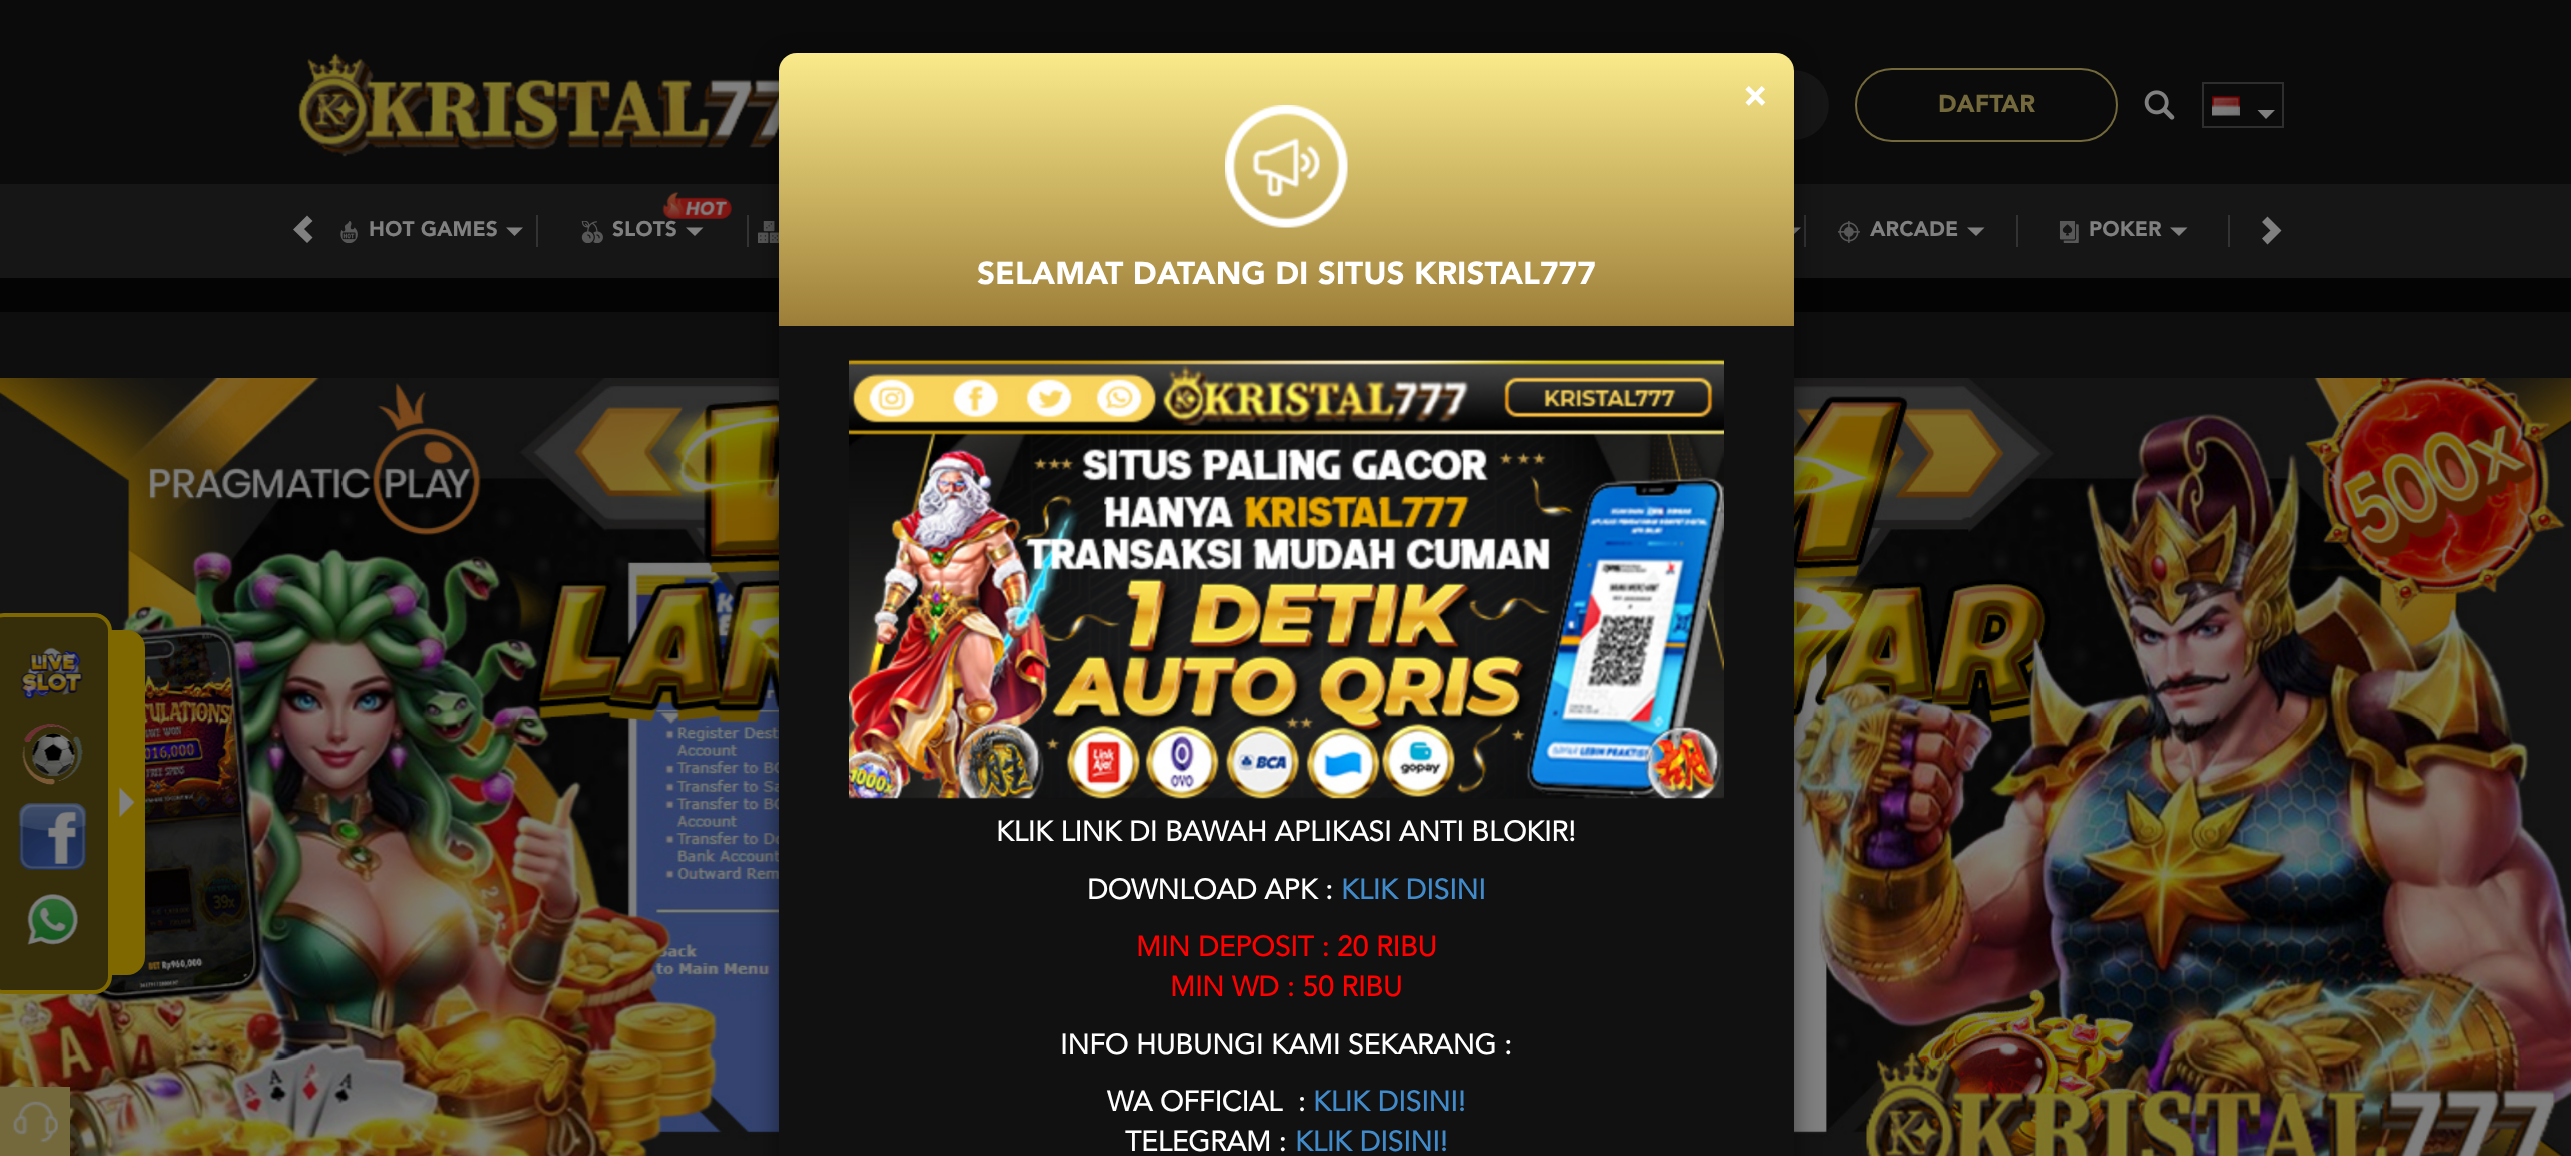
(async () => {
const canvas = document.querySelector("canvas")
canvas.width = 2571
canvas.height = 1156
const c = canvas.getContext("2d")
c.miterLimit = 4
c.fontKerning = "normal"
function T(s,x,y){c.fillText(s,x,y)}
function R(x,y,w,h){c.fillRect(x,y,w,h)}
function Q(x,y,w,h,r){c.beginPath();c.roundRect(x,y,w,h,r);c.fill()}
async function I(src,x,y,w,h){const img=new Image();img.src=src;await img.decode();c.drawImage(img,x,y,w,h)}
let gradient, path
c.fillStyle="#040404"
R(0,0,2571,1156)
await I("17.png",0,378,2571,778)
c.fillStyle="#362e0a"
c.beginPath()
c.roundRect(-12,615,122,377,16)
c.fill()
c.strokeStyle="#806800"
c.lineWidth=4
c.stroke()
await I("1.png",20,647,63,52)
await I("2.png",22,724,61,61)
await I("3.png",18,803,69,67)
await I("4.png",27,894,51,51)
c.fillStyle="#806800"
c.beginPath()
c.roundRect(109,630,36,345,[0,18,18,0])
c.fill()
await I("5.png",119,787,16,31)
c.fillStyle="#0f0e0f"
R(0,312,2571,66)
c.fillStyle="#0b0b0b"
R(0,0,2571,184)
await I("8.png",298,53,481,104)
c.fillStyle="#161616"
Q(1566,70,263,70,35)
c.fillStyle="#171616"
R(0,184,2571,94)
c.fillStyle="#333"
R(747,215,2,32)
await I("14.png",758,221,21,22)
c.fillStyle="#808080"
path = new Path2D("M1783 227.5h18l-9 8.5z")
c.fill(path)
c.fillStyle="#333"
R(1804,215,2,32)
c.fillStyle="#00000080"
c.filter="blur(13px)"
c.beginPath()
c.roundRect(779,61,1015,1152,18)
c.fill()
c.filter="none"
gradient = c.createLinearGradient(1286,52,1286,326)
gradient.addColorStop(0,"#fbeb8c")
gradient.addColorStop(1,"#9d7e39")
c.fillStyle = gradient
c.beginPath()
c.roundRect(779,53,1015,273,[18,18,0,0])
c.fill()
c.font="900 37px Avenir"
c.fillStyle="#fff"
T("×",1743,107)
await I("6.png",1225,105,123,123)
c.font="900 31.5px Avenir"
T("SELAMAT DATANG DI SITUS KRISTAL777",977,284)
c.fillStyle="#111"
R(779,326,1015,830)
await I("7.png",849,359,875,440)
c.font="bold 28px Avenir"
c.fillStyle="#fff"
T("KLIK LINK DI BAWAH APLIKASI ANTI BLOKIR!",996,841)
T("DOWNLOAD APK :",1087,899)
c.fillStyle="#428bca"
T("KLIK DISINI",1341,899)
c.fillStyle="#f00"
T("MIN DEPOSIT : 20 RIBU",1136,956)
T("MIN WD : 50 RIBU",1170,996)
c.fillStyle="#fff"
T("INFO HUBUNGI KAMI SEKARANG :",1060,1054)
T("WA OFFICIAL  :",1107,1111)
c.fillStyle="#428bca"
T("KLIK DISINI!",1313,1111)
c.fillStyle="#fff"
T("TELEGRAM :",1125,1151)
c.fillStyle="#428bca"
T("KLIK DISINI!",1295,1151)
c.beginPath()
c.roundRect(1856,69,261,72,36)
c.strokeStyle="#73693c"
c.lineWidth=2
c.stroke()
c.font="900 24.5px Avenir"
c.fillStyle="#73693c"
T("DAFTAR",1938,112)
await I("9.png",2144,90,31,30)
c.strokeStyle="#2e2e2e"
c.strokeRect(2203,83,80,44)
await I("10.png",2212,95,28,21)
c.fillStyle="#808080"
path = new Path2D("M2257.5 110h17.5l-9 9z")
c.fill(path)
path = new Path2D("M307 243l5.5-5.5l-8.5-8.5l8.5-8l-5.5-5.5l-14 14z")
c.fill(path)
await I("11.png",340,221,18,22)
c.font="900 21px Avenir"
T("HOT GAMES",369,236)
path = new Path2D("M506 227.5h17l-8.5 8.5z")
c.fill(path)
c.fillStyle="#333"
R(536,215,2,32)
await I("12.png",662,191,70,28)
await I("13.png",581,221,22,22)
c.fillStyle="#808080"
T("SLOTS",612,236)
path = new Path2D("M686 227.5h17.5l-8.5 8.5z")
c.fill(path)
await I("15.png",1838,221,22,22)
T("ARCADE",1870,236)
path = new Path2D("M1967 227.5h17.5l-8.5 8.5z")
c.fill(path)
c.fillStyle="#333"
R(2016,215,2,32)
await I("16.png",2059,221,20,22)
c.fillStyle="#808080"
T("POKER",2089,236)
path = new Path2D("M2170 227.5h17.5l-8.5 8.5z")
c.fill(path)
c.fillStyle="#333"
R(2228,215,2,32)
c.fillStyle="#808080"
path = new Path2D("M2267.5 244.5l-5.5-6l8.5-8l-8.5-8.5l5.5-5.5l14 14z")
c.fill(path)
c.fillStyle="#73693c"
R(0,1087,70,69)
await I("18.png",13,1101,45,42)
})()
